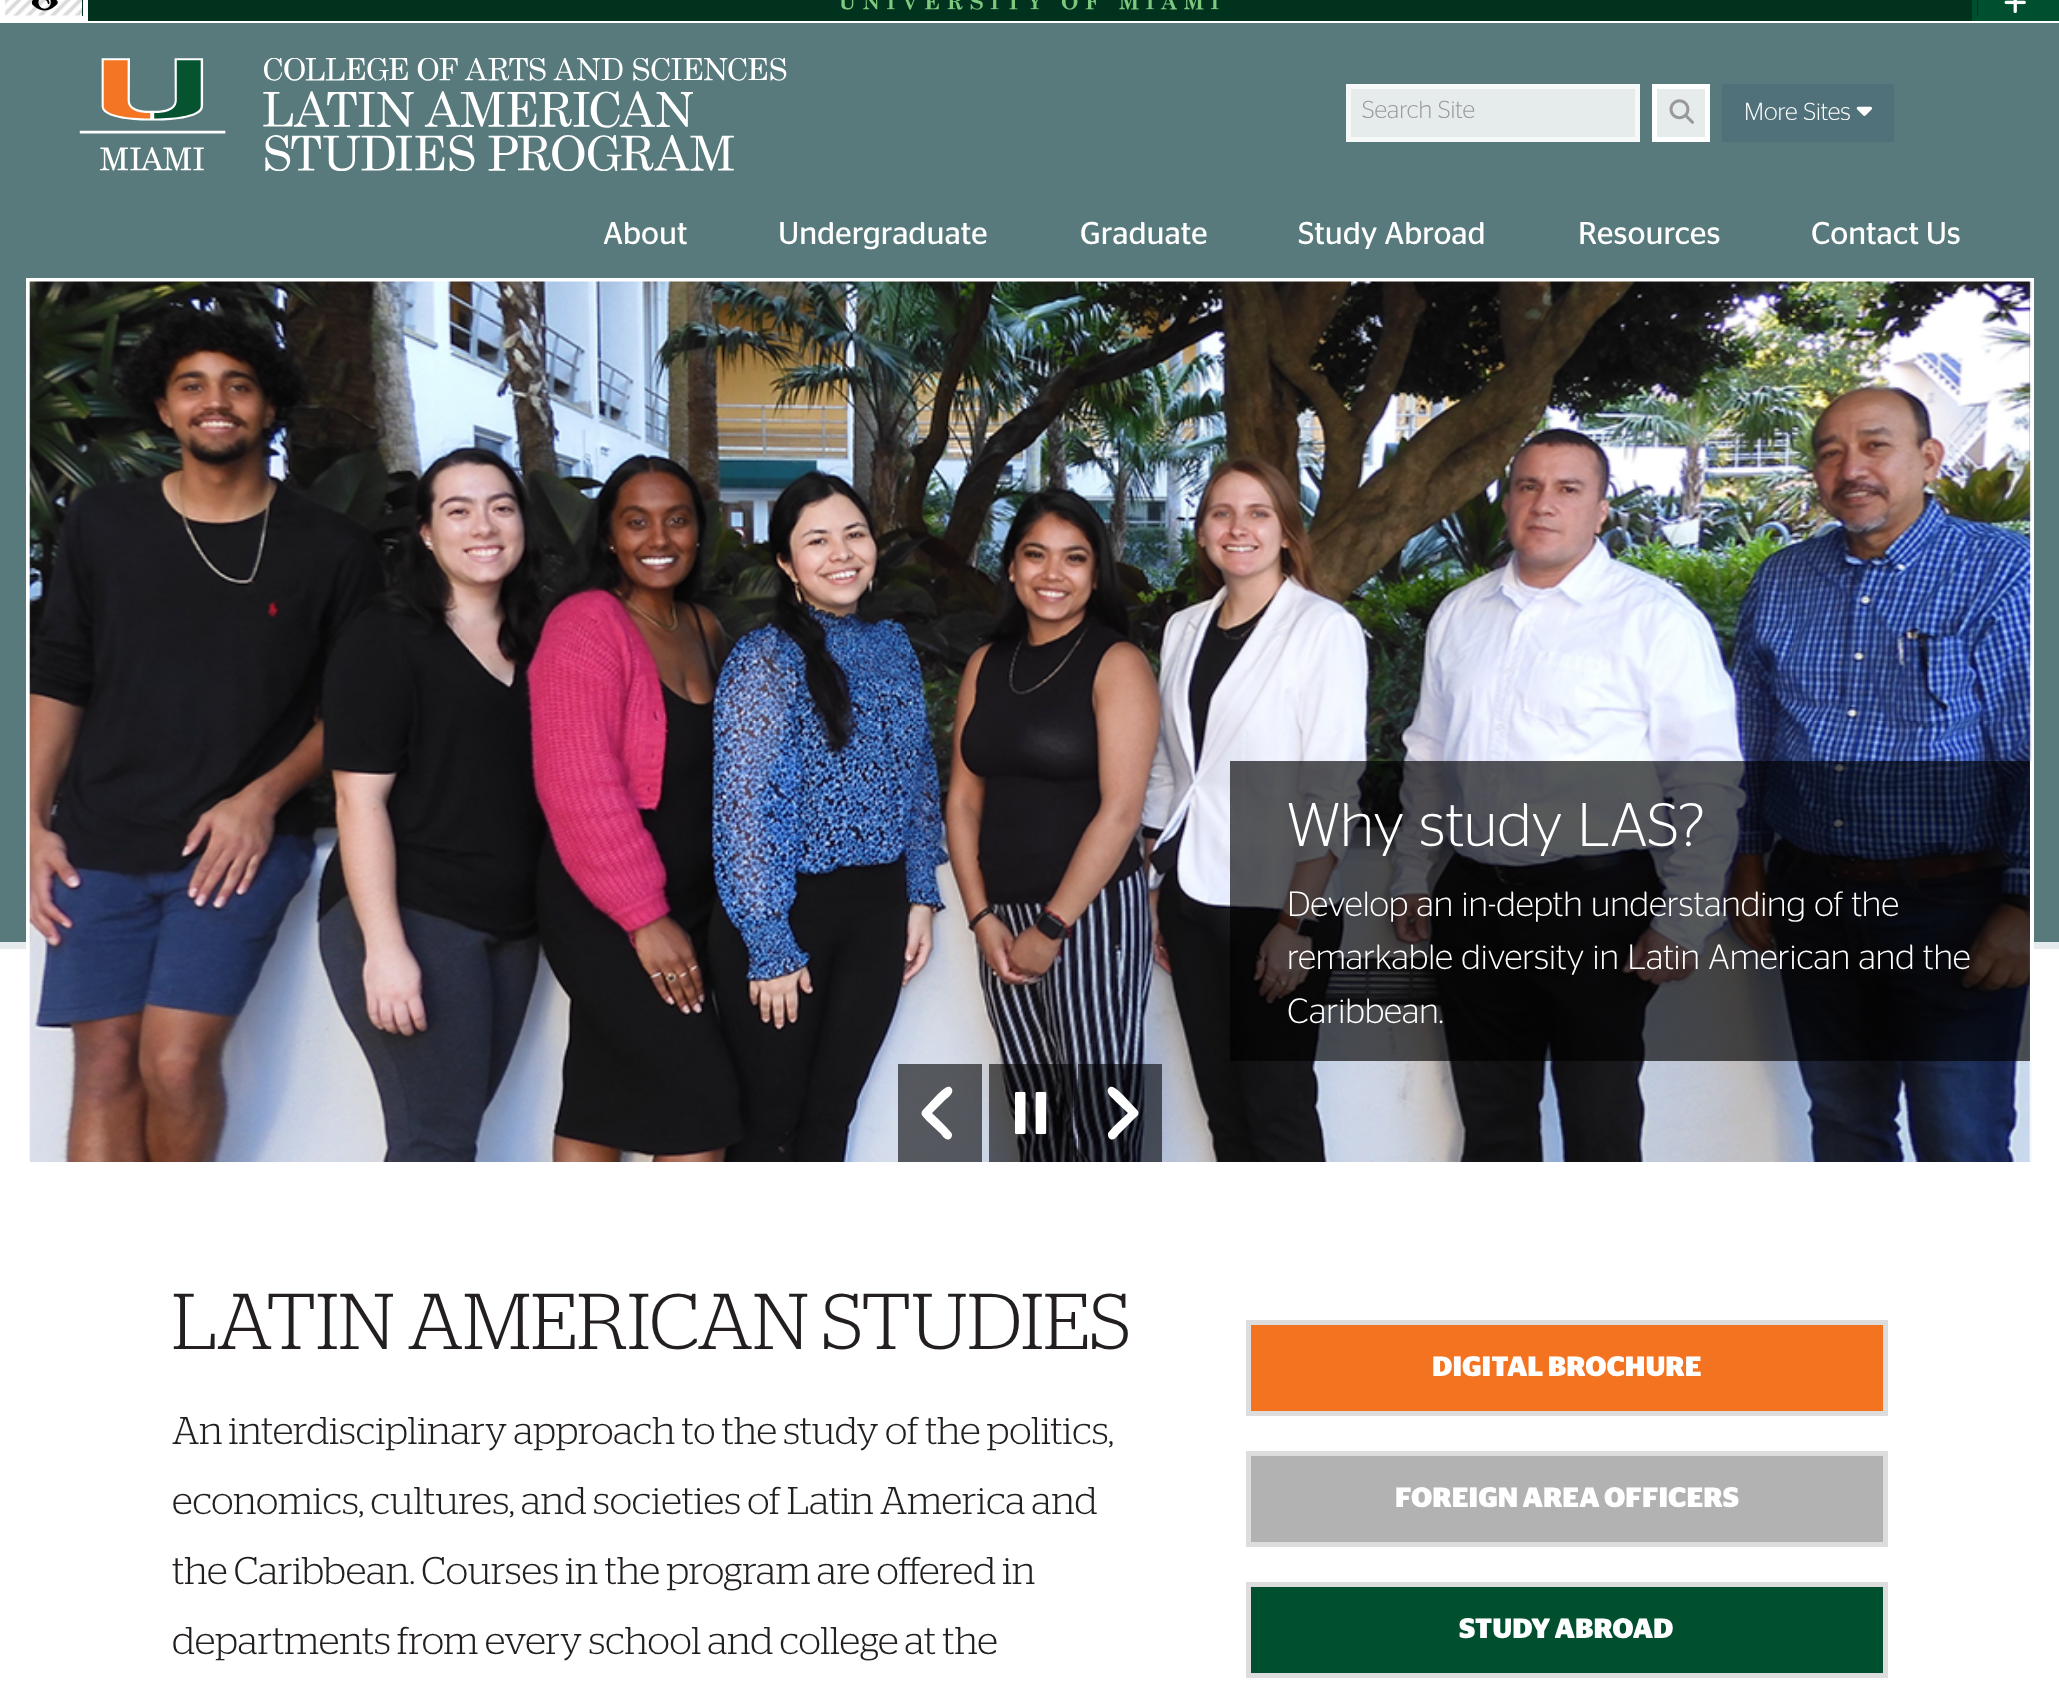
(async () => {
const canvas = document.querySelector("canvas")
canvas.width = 2059
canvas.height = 1690
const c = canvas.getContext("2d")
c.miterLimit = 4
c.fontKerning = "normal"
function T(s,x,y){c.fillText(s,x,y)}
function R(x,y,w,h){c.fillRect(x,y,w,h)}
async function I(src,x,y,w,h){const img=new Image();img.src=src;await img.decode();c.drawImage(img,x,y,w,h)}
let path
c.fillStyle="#fff"
R(0,0,2059,1690)
c.fillStyle="#01321e"
R(82,0,1896,21)
await I("1.png",5,0,77,16)
c.strokeStyle="#fff"
c.lineWidth=5
c.strokeRect(2.5,-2.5,83,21)
await I("2.png",32,0,26,11)
await I("3.png",841,0,378,10)
c.fillStyle="#005030"
R(1978,0,77,16)
c.strokeStyle="#005030"
c.strokeRect(1974.5,-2.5,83,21)
await I("4.png",2004,0,22,14)
c.fillStyle="#587a7c"
R(0,23,2059,255)
await I("5.png",79,58,708,113)
c.fillStyle="#e6ebeb"
c.beginPath()
c.rect(1348.5,86.5,289,53)
c.fill()
c.strokeStyle="#f7f8f8"
c.stroke()
c.font="300 24.5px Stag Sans"
c.fillStyle="#999"
T("Search Site",1362,118)
c.fillStyle="#e6ebeb"
c.beginPath()
c.rect(1654.5,86.5,53,53)
c.fill()
c.strokeStyle="#fff"
c.stroke()
await I("6.png",1669,99,25,25)
c.fillStyle="#507179"
R(1722,84,172,58)
c.fillStyle="#fff"
T("More Sites",1744,120)
await I("7.png",1856,106,16,10)
c.font="31.5px Stag Sans"
T("About",603,244)
T("Undergraduate",778,244)
T("Graduate",1080,244)
T("Study Abroad",1298,244)
T("Resources",1578,244)
T("Contact Us",1811,244)
c.fillStyle="#e5ebec"
R(0,942,2059,7)
c.fillStyle="#587a7c"
R(0,278,2059,664)
c.lineWidth=4
c.strokeRect(28,280,2004,884)
await I("8.png",29,281,2003,881)
c.fillStyle="#000000a6"
R(1230,761,800,300)
c.fillStyle="#fff"
R(2030,761,2,300)
c.font="300 61.25px Stag Sans"
T("Why study LAS?",1287,846)
c.font="300 35px Stag Sans"
T("Develop an in-depth understanding of the",1287,916)
T("remarkable diversity in Latin American and the",1287,969)
T("Caribbean.",1287,1023)
c.fillStyle="#00000099"
R(898,1064,84,98)
c.fillStyle="#fff"
path = new Path2D("M923 1110c-4 4 1 7 3 10l15 14c2 3 6 8 10 4c1-1 1-3 1-4c-1-3-17-18-20-21l12-12c3-3 10-7 8-12c-4-7-13 5-15 6z")
c.fill(path)
c.fillStyle="#00000099"
R(989,1064,84,98)
await I("9.png",1015,1091,32,44)
R(1078,1064,84,98)
c.fillStyle="#fff"
path = new Path2D("M1137 1110c4 4-1 7-4 10l-14 14c-2 3-6 8-10 4c-1-1-1-3-1-4c0-3 17-18 20-21l-13-12c-2-3-9-7-7-12c4-7 13 5 15 6z")
c.fill(path)
c.font="300 78.75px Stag"
c.fillStyle="#231f20"
T("LATIN AMERICAN STUDIES",172,1349)
c.font="300 38.5px Stag"
T("An interdisciplinary approach to the study of the politics,",172,1444)
T("economics, cultures, and societies of Latin America and",172,1514)
T("the Caribbean. Courses in the program are offered in",172,1584)
T("departments from every school and college at the",172,1654)
c.fillStyle="#f47321"
c.beginPath()
c.rect(1248.5,1322.5,637,91)
c.fill()
c.strokeStyle="#ddd"
c.lineWidth=5
c.stroke()
c.font="bold 28px Stag Sans"
c.fillStyle="#fff"
T("DIGITAL BROCHURE",1432,1376)
c.fillStyle="#b2b2b2"
c.beginPath()
c.rect(1248.5,1453.5,637,91)
c.fill()
c.stroke()
c.fillStyle="#fff"
T("FOREIGN AREA OFFICERS",1395,1507)
c.fillStyle="#005030"
c.beginPath()
c.rect(1248.5,1584.5,637,91)
c.fill()
c.stroke()
c.fillStyle="#fff"
T("STUDY ABROAD",1459,1638)
})()
